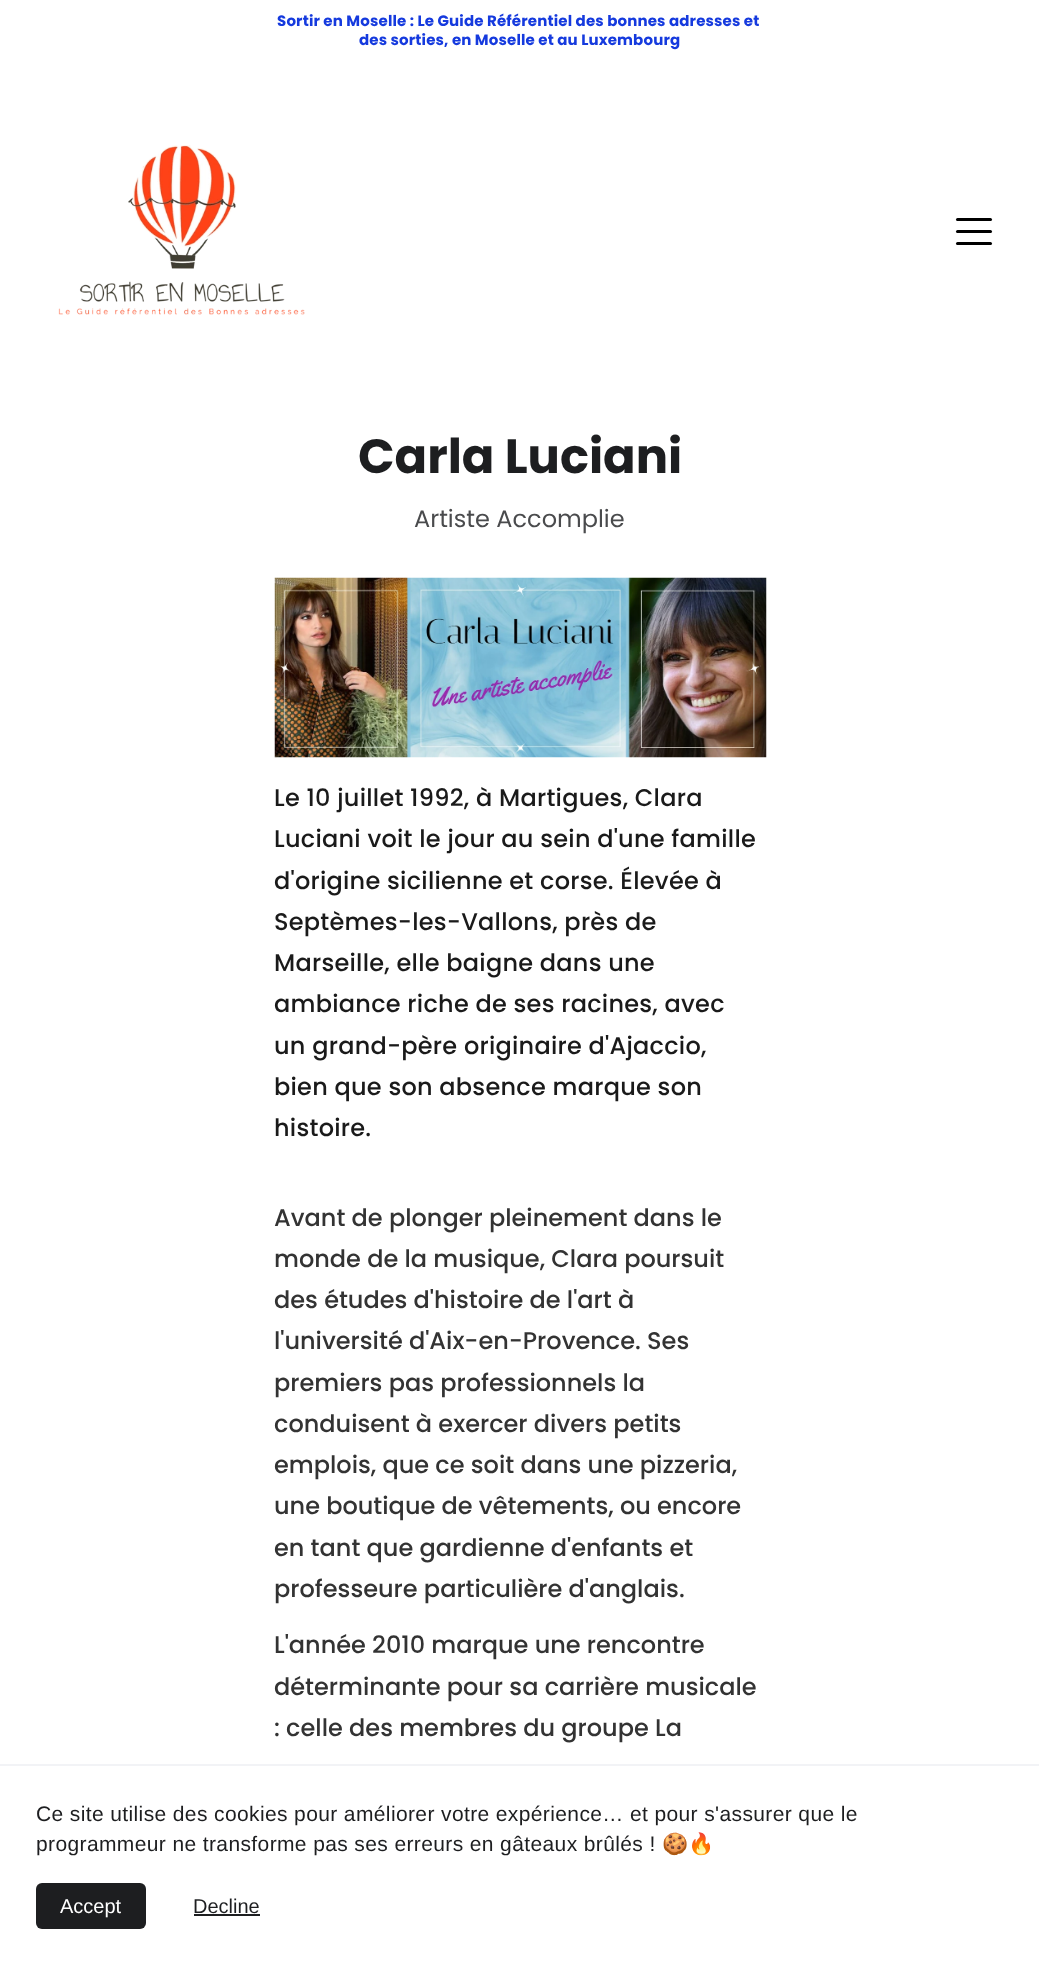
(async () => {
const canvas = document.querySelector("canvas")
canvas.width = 1039
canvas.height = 1962
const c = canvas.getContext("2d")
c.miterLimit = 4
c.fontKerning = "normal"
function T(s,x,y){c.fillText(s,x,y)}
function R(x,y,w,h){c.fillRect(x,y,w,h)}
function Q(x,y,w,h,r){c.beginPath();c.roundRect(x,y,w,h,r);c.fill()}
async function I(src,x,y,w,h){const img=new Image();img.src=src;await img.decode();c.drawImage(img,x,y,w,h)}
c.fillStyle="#fff"
R(0,0,1039,1962)
c.letterSpacing="0.15px"
c.font="bold 15px Poppins"
c.fillStyle="#153ade"
T("Sortir en Moselle : Le Guide Référentiel des bonnes adresses et",277,26)
T("des sorties, en Moselle et au Luxembourg",359,45)
await I("1.png",58,145,247,170)
c.fillStyle="#000"
Q(956,218,36,3,1.5)
Q(956,230,36,3,1.5)
Q(956,242,36,3,1.5)
c.letterSpacing="0px"
c.font="bold 48px Poppins"
c.fillStyle="#1d1e20"
T("Carla Luciani",358,473)
c.font="24px Poppins"
c.fillStyle="#4a4b4d"
T("Artiste Accomplie",414,527)
await I("2.png",274,577,493,181)
c.letterSpacing="0.25px"
c.font="500 24px Poppins"
c.fillStyle="#1a1a1a"
T("Le 10 juillet 1992, à Martigues, Clara",274,806)
T("Luciani voit le jour au sein d'une famille",274,847)
T("d'origine sicilienne et corse. Élevée à",274,889)
T("Septèmes-les-Vallons, près de",274,930)
T("Marseille, elle baigne dans une",274,971)
T("ambiance riche de ses racines, avec",274,1012)
T("un grand-père originaire d'Ajaccio,",274,1054)
T("bien que son absence marque son",274,1095)
T("histoire.",274,1136)
c.letterSpacing="0px"
c.fillStyle="#333"
T("Avant de plonger pleinement dans le",274,1226)
T("monde de la musique, Clara poursuit",274,1267)
T("des études d'histoire de l'art à",274,1308)
T("l'université d'Aix-en-Provence. Ses",274,1349)
T("premiers pas professionnels la",274,1391)
T("conduisent à exercer divers petits",274,1432)
T("emplois, que ce soit dans une pizzeria,",274,1473)
T("une boutique de vêtements, ou encore",274,1514)
T("en tant que gardienne d'enfants et",274,1556)
T("professeure particulière d'anglais.",274,1597)
T("L'année 2010 marque une rencontre",274,1653)
T("déterminante pour sa carrière musicale",274,1695)
T(": celle des membres du groupe La",274,1736)
c.fillStyle="#f2f3f6"
R(0,1764,1039,2)
c.letterSpacing="0.38px"
c.font="21px Liberation Sans"
c.fillStyle="#1d1e20"
T("Ce site utilise des cookies pour améliorer votre expérience… et pour s'assurer que le",36,1821)
T("programmeur ne transforme pas ses erreurs en gâteaux brûlés !",36,1851)
c.font="21px Noto Color Emoji"
T("🍪🔥",662,1851)
Q(36,1883,110,46,6)
c.letterSpacing="0px"
c.font="20px Liberation Sans"
c.fillStyle="#fff"
T("Accept",60,1913)
c.fillStyle="#1d1e20"
T("Decline",193,1913)
R(194,1914,66,2)
})()
